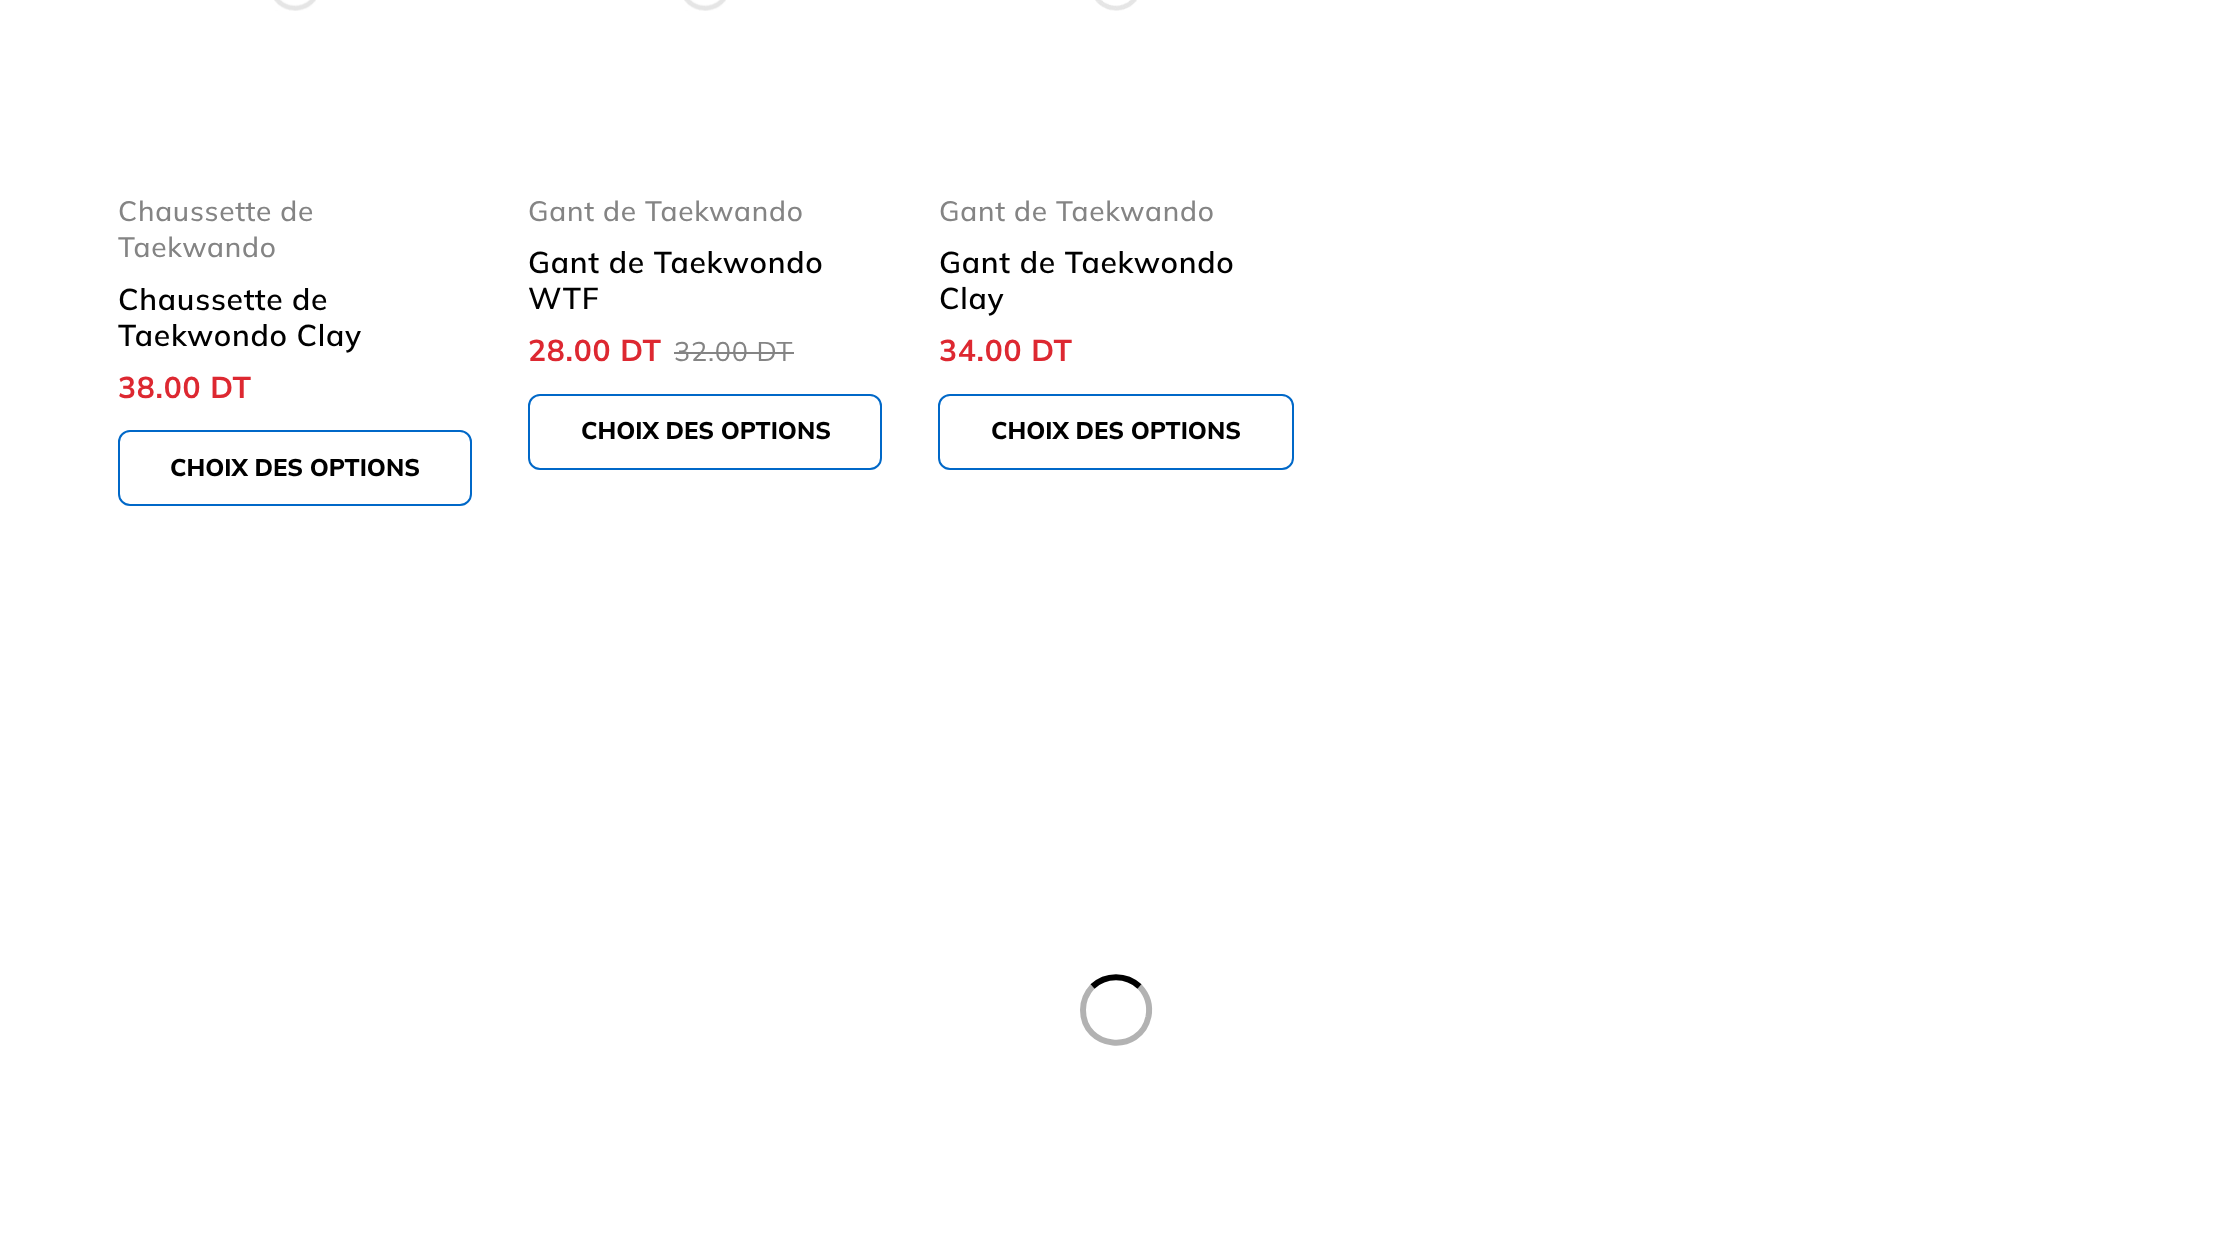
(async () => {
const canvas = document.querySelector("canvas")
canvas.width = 2231
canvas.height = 1244
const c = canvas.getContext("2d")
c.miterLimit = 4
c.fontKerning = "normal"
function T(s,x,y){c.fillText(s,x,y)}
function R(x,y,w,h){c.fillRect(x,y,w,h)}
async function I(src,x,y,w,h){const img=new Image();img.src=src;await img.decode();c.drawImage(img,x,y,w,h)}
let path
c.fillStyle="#fff"
R(0,0,2231,1244)
await I("1.png",274,0,42,11)
c.letterSpacing="0.75px"
c.font="500 28px Mulish"
c.fillStyle="#848484"
T("Chaussette de",118,221)
T("Taekwando",118,257)
c.font="600 30px Mulish"
c.fillStyle="#000"
T("Chaussette de",118,310)
T("Taekwondo Clay",118,346)
c.font="bold 30px Mulish"
c.fillStyle="#dd2831"
T("38.00 DT",118,398)
c.beginPath()
c.roundRect(119,431,352,74,11)
c.strokeStyle="#0068c8"
c.lineWidth=2
c.stroke()
c.letterSpacing="0px"
c.font="800 24px Mulish"
c.fillStyle="#000"
T("CHOIX DES OPTIONS",170,476)
await I("1.png",684,0,42,11)
c.letterSpacing="0.75px"
c.font="500 28px Mulish"
c.fillStyle="#848484"
T("Gant de Taekwando",528,221)
c.font="600 30px Mulish"
c.fillStyle="#000"
T("Gant de Taekwondo",528,273)
T("WTF",528,309)
c.font="bold 30px Mulish"
c.fillStyle="#dd2831"
T("28.00 DT",528,361)
c.font="27px Mulish"
c.fillStyle="#848484"
T("32.00 DT",674,361)
R(674,352,120,2)
c.beginPath()
c.roundRect(529,395,352,74,11)
c.stroke()
c.letterSpacing="0px"
c.font="800 24px Mulish"
c.fillStyle="#000"
T("CHOIX DES OPTIONS",581,439)
await I("2.png",1095,0,42,11)
c.letterSpacing="0.75px"
c.font="500 28px Mulish"
c.fillStyle="#848484"
T("Gant de Taekwando",939,221)
c.font="600 30px Mulish"
c.fillStyle="#000"
T("Gant de Taekwondo",939,273)
T("Clay",939,309)
c.font="bold 30px Mulish"
c.fillStyle="#dd2831"
T("34.00 DT",939,361)
c.beginPath()
c.roundRect(939,395,354,74,11)
c.stroke()
c.letterSpacing="0px"
c.font="800 24px Mulish"
c.fillStyle="#000"
T("CHOIX DES OPTIONS",991,439)
path = new Path2D("M1092.5 986.5c13-12.5 34-12.5 47 0")
c.strokeStyle="#000"
c.lineWidth=6
c.stroke(path)
path = new Path2D("M1139.5 986.5c7.5 8 11 19 9 30c-8 38.5-65.5 33-65.5-6.5c0-8.5 3.5-17 9.5-23.5")
c.strokeStyle="#0000004d"
c.stroke(path)
})()
